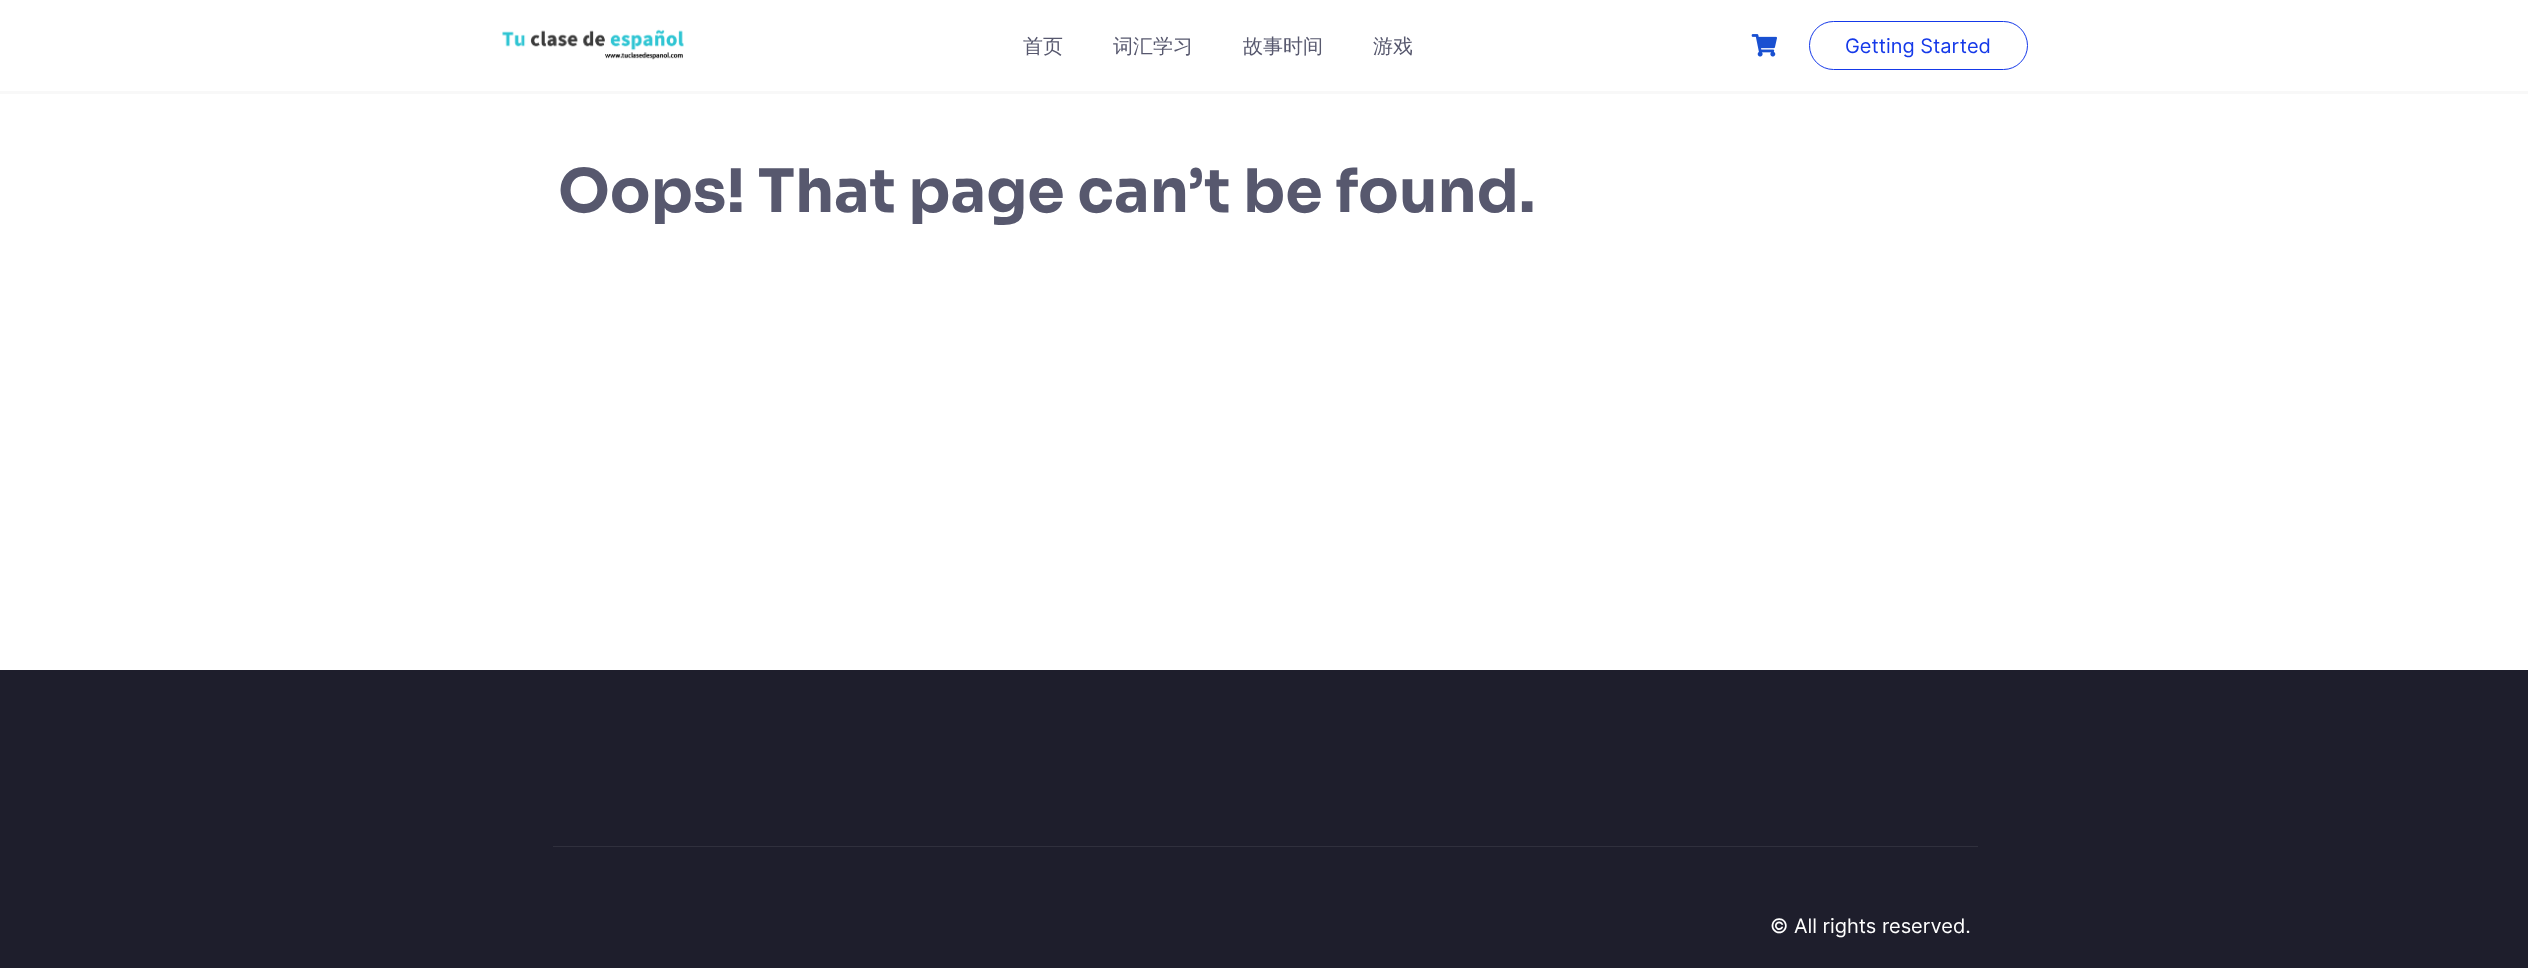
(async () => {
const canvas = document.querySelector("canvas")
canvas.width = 2528
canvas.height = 968
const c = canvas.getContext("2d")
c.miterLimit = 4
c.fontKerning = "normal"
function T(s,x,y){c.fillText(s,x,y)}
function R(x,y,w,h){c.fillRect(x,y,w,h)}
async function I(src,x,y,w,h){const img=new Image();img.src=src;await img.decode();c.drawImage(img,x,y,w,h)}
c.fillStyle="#fff"
R(0,0,2528,968)
c.fillStyle="#f8f8f8"
R(0,91,2528,3)
await I("1.png",502,29,182,31)
c.font="500 20px WenQuanYi Zen Hei"
c.fillStyle="#57586e"
T("首页",1023,53)
T("词汇学习",1113,53)
T("故事时间",1243,53)
T("游戏",1373,53)
await I("2.png",1751,34,26,23)
c.beginPath()
c.roundRect(1809.5,21.5,218,48,24)
c.strokeStyle="#1539e9"
c.stroke()
c.font="20px Inter"
c.fillStyle="#1539e9"
T("Getting Started",1845,53)
c.font="bold 60px Sora"
c.fillStyle="#57586e"
T("Oops! That page can’t be found.",558,212)
c.fillStyle="#1e1e2c"
R(0,670,2528,298)
c.fillStyle="#30303d"
R(553,846,1425,1)
c.font="20px Inter"
c.fillStyle="#fff"
T("© All rights reserved.",1770,933)
})()
